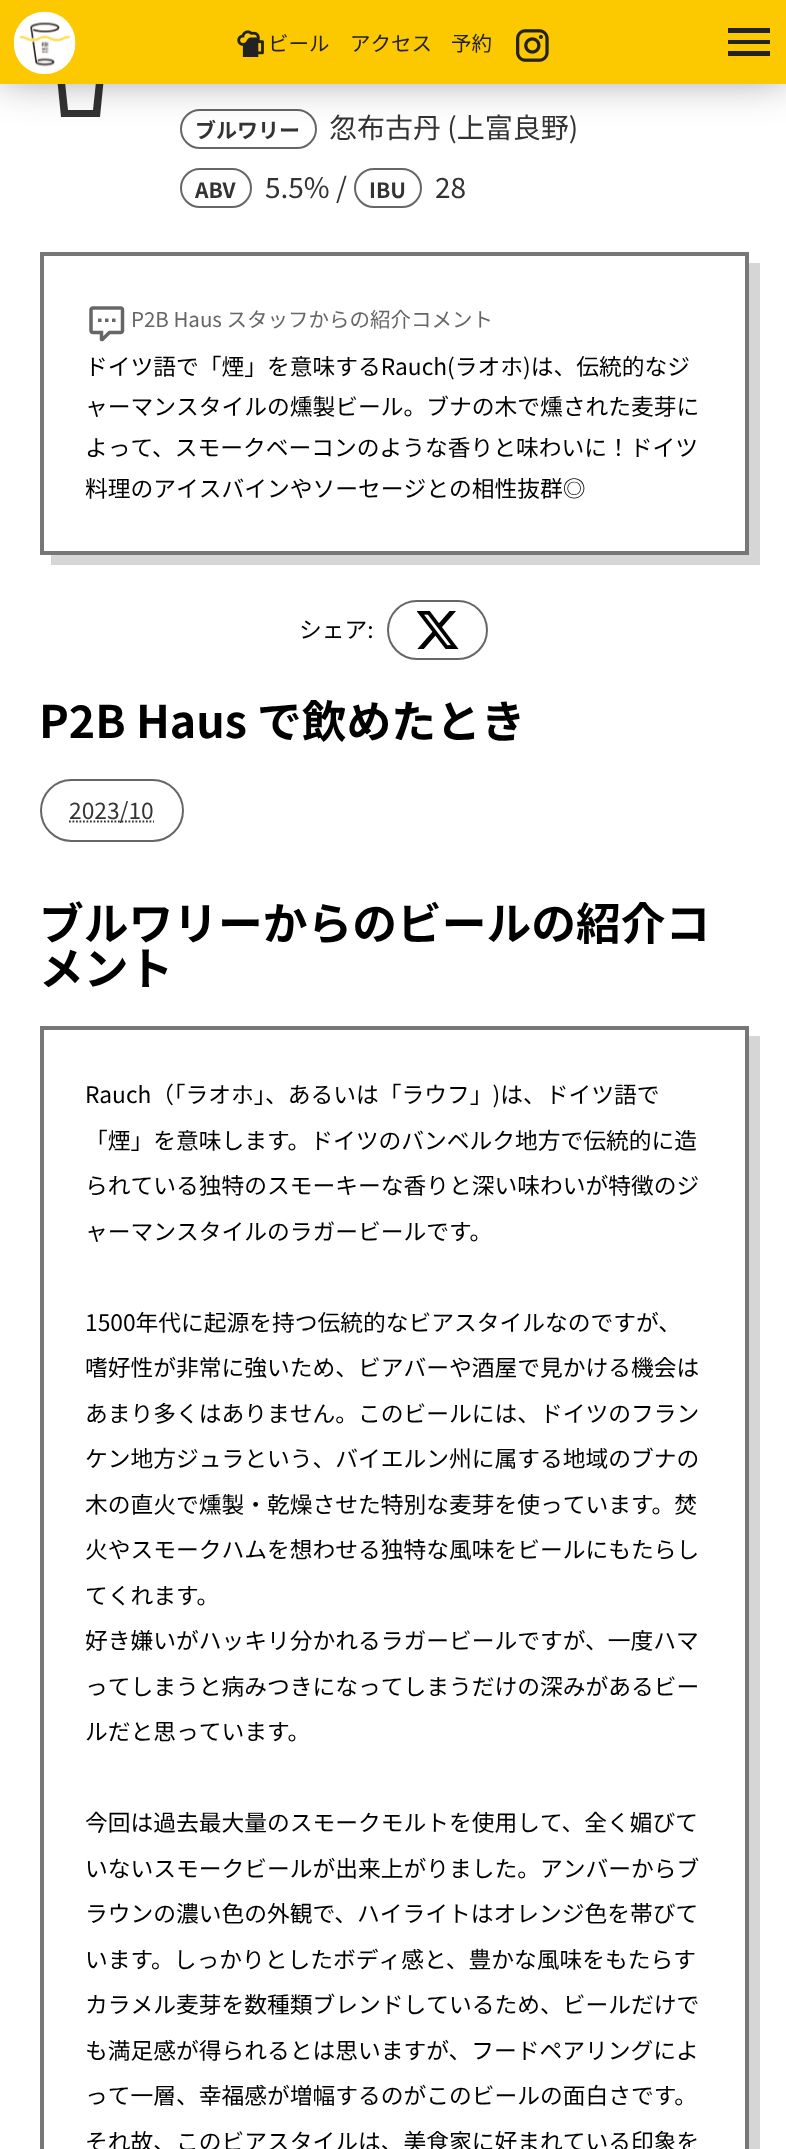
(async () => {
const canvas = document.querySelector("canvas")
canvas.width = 786
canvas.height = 2149
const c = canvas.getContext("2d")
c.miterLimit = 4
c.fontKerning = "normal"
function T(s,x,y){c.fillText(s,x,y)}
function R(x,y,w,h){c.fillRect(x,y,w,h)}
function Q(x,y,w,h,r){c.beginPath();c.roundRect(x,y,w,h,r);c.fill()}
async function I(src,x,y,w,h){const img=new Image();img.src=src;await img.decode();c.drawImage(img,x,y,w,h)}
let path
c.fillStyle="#fff"
R(0,0,786,2149)
c.fillStyle="#333"
path = new Path2D("M54 47l7 70h39l7-70h-53m8 7h37l-6 56h-25z")
c.fill(path)
c.beginPath()
c.roundRect(181,110,135,38,19)
c.strokeStyle="#666"
c.lineWidth=2
c.stroke()
c.fillStyle="#00000080"
c.filter="blur(23px)"
c.beginPath()
c.rect(0,-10,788,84)
c.fill()
c.filter="none"
c.fillStyle="#fcc800"
R(0,0,786,84)
c.fillStyle="#fff"
Q(14,12,61,62,30)
await I("1.png",14,11,62,63)
await I("2.png",237,30,27,27)
c.font="20.5px Noto Sans JP"
c.fillStyle="#222"
T("ビール",268,51)
T("アクセス",350,51)
T("予約",451,51)
await I("3.png",516,29,33,33)
path = new Path2D("M728 28h42v5h-42v-5m0 12h42v4h-42v-4m0 11h42v5h-42z")
c.fill(path)
c.font="bold 21px Noto Sans JP"
c.fillStyle="#333"
T("ブルワリー",195,138)
c.font="28px Noto Sans JP"
T("忽布古丹 (上富良野)",329,138)
c.beginPath()
c.roundRect(181,169,70,38,19)
c.stroke()
c.font="bold 21px Noto Sans JP"
T("ABV",195,198)
c.font="28px Noto Sans JP"
T("5.5% /",265,198)
c.beginPath()
c.roundRect(355,169,66,38,19)
c.stroke()
c.font="bold 21px Noto Sans JP"
T("IBU",369,198)
c.font="28px Noto Sans JP"
T("28",435,198)
c.fillStyle="#d6d6d6"
path = new Path2D("M51 555v10h709v-302h-11v292z")
c.fill(path)
c.strokeStyle="#777"
c.lineWidth=4
c.strokeRect(42,254,705,299)
await I("4.png",89,306,36,36)
c.font="20.5px Noto Sans JP"
c.fillStyle="#666"
T("P2B Haus スタッフからの紹介コメント",131,327)
c.font="22.75px Noto Sans JP"
c.fillStyle="#000"
T("ドイツ語で「煙」を意味するRauch(ラオホ)は、伝統的なジ",85,375)
T("ャーマンスタイルの燻製ビール。ブナの木で燻された麦芽に",85,415)
T("よって、スモークベーコンのような香りと味わいに！ドイツ",85,456)
T("料理のアイスバインやソーセージとの相性抜群◎",85,497)
T("シェア:",299,638)
c.beginPath()
c.roundRect(388,601,99,58,29)
c.strokeStyle="#666"
c.lineWidth=2
c.stroke()
await I("5.png",417,611,42,38)
c.font="bold 44.75px Noto Sans JP"
T("P2B Haus で飲めたとき",39,738)
c.beginPath()
c.roundRect(41,780,142,61,30.5)
c.stroke()
path = new Path2D("M69 821.5h85")
c.strokeStyle="#333"
c.lineWidth=1.8
c.setLineDash([1.75,1.75])
c.stroke(path)
c.font="22.75px Noto Sans JP"
c.fillStyle="#333"
T("2023/10",69,819)
c.font="bold 44.75px Noto Sans JP"
c.fillStyle="#000"
T("ブルワリーからのビールの紹介コ",39,940)
T("メント",39,985)
c.fillStyle="#d6d6d6"
path = new Path2D("M51 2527v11h709v-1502h-11v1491z")
c.fill(path)
c.strokeStyle="#777"
c.lineWidth=4
c.setLineDash([])
c.strokeRect(42,1028,705,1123)
c.font="22.75px Noto Sans JP"
c.fillStyle="#000"
T("Rauch（「ラオホ」、あるいは「ラウフ」)は、ドイツ語で",85,1103)
T("「煙」を意味します。ドイツのバンベルク地方で伝統的に造",85,1149)
T("られている独特のスモーキーな香りと深い味わいが特徴のジ",85,1194)
T("ャーマンスタイルのラガービールです。",85,1240)
T("1500年代に起源を持つ伝統的なビアスタイルなのですが、",85,1331)
T("嗜好性が非常に強いため、ビアバーや酒屋で見かける機会は",85,1376)
T("あまり多くはありません。このビールには、ドイツのフラン",85,1422)
T("ケン地方ジュラという、バイエルン州に属する地域のブナの",85,1467)
T("木の直火で燻製・乾燥させた特別な麦芽を使っています。焚",85,1513)
T("火やスモークハムを想わせる独特な風味をビールにもたらし",85,1558)
T("てくれます。",85,1604)
T("好き嫌いがハッキリ分かれるラガービールですが、一度ハマ",85,1649)
T("ってしまうと病みつきになってしまうだけの深みがあるビー",85,1695)
T("ルだと思っています。",85,1740)
T("今回は過去最大量のスモークモルトを使用して、全く媚びて",85,1831)
T("いないスモークビールが出来上がりました。アンバーからブ",85,1877)
T("ラウンの濃い色の外観で、ハイライトはオレンジ色を帯びて",85,1922)
T("います。しっかりとしたボディ感と、豊かな風味をもたらす",85,1968)
T("カラメル麦芽を数種類ブレンドしているため、ビールだけで",85,2013)
T("も満足感が得られるとは思いますが、フードペアリングによ",85,2059)
T("って一層、幸福感が増幅するのがこのビールの面白さです。",85,2104)
T("それ故、このビアスタイルは、美食家に好まれている印象を",85,2150)
})()
